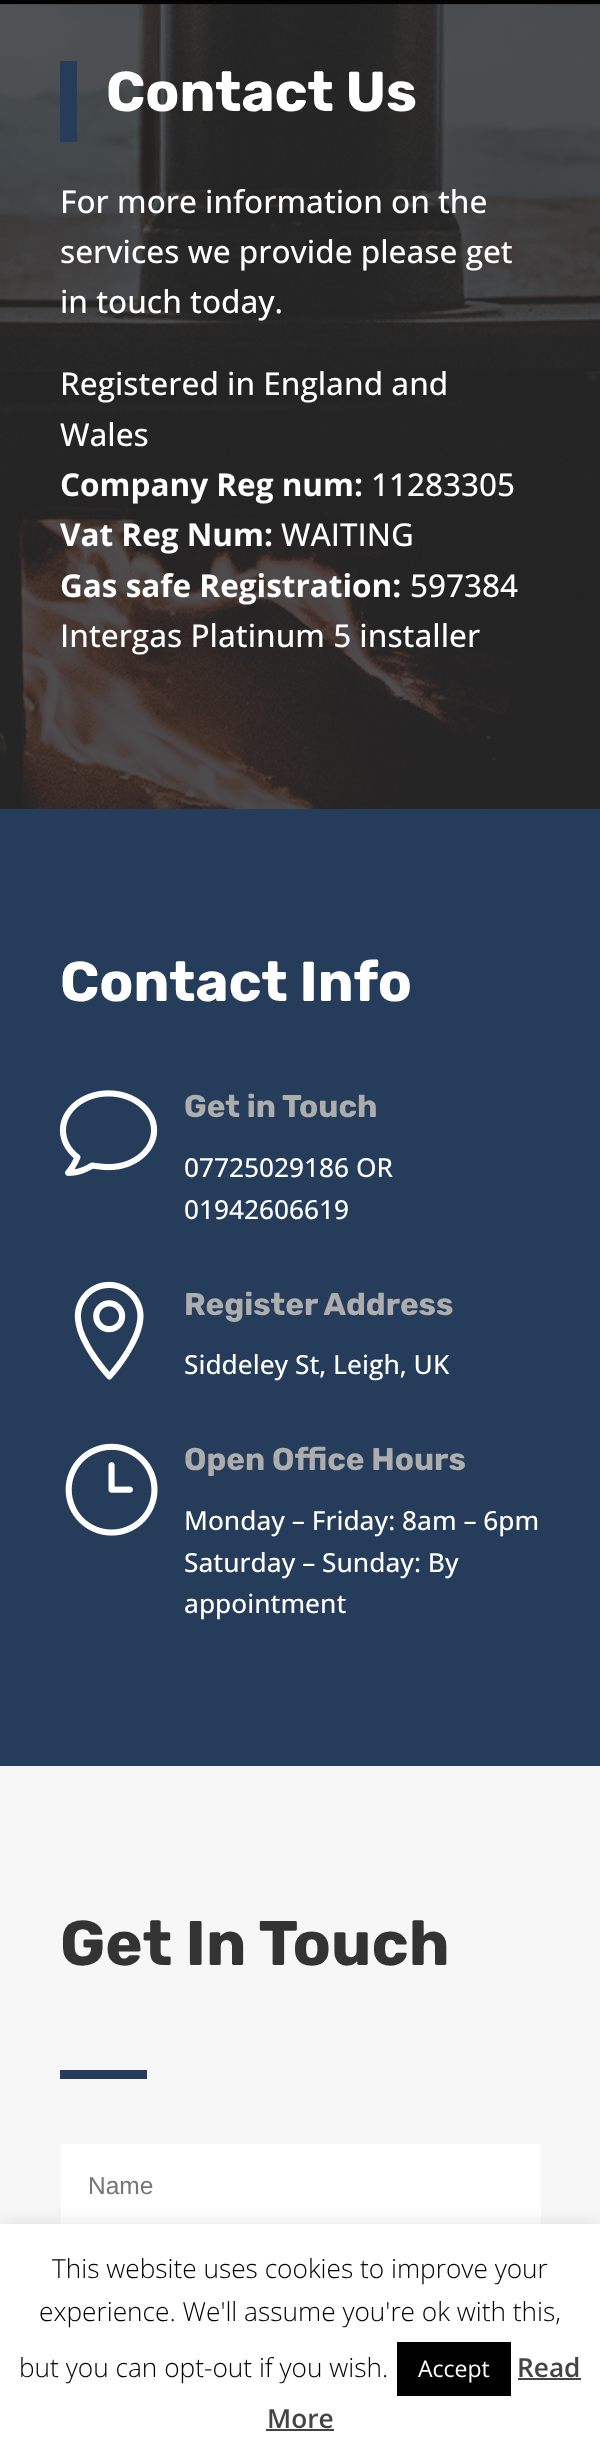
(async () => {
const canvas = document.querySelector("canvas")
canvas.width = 600
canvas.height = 2460
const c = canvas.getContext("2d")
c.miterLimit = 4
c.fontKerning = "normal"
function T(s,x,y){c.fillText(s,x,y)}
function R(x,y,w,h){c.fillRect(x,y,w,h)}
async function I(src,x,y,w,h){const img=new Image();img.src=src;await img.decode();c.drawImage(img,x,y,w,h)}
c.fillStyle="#fff"
R(0,0,600,2460)
await I("1.png",0,4,600,805)
c.fillStyle="#0000001a"
R(0,4,600,1)
c.fillStyle="#030304"
R(0,0,600,4)
c.fillStyle="#253c5a"
R(60,61,17,81)
c.font="bold 56px Rubik"
c.fillStyle="#fff"
T("Contact Us",106,111)
c.font="500 31.5px Open Sans"
T("For more information on the",60,213)
T("services we provide please get",60,263)
T("in touch today.",60,313)
T("Registered in England and",60,395)
T("Wales",60,446)
c.font="bold 31.5px Open Sans"
T("Company Reg num:",60,496)
c.font="500 31.5px Open Sans"
T("11283305",371,496)
c.font="bold 31.5px Open Sans"
T("Vat Reg Num:",60,546)
c.font="500 31.5px Open Sans"
T("WAITING",281,546)
c.font="bold 31.5px Open Sans"
T("Gas safe Registration:",60,597)
c.font="500 31.5px Open Sans"
T("597384",410,597)
T("Intergas Platinum 5 installer",60,647)
c.fillStyle="#253c5a"
R(0,809,600,957)
c.font="bold 56px Rubik"
c.fillStyle="#fff"
T("Contact Info",60,1001)
await I("2.png",59,1090,99,86)
c.font="bold 31.5px Rubik"
c.fillStyle="#adadad"
T("Get in Touch",184,1117)
c.font="500 26.25px Open Sans"
c.fillStyle="#fff"
T("07725029186 OR",184,1177)
T("01942606619",184,1219)
await I("3.png",74,1281,70,99)
c.font="bold 31.5px Rubik"
c.fillStyle="#adadad"
T("Register Address",184,1315)
c.font="500 26.25px Open Sans"
c.fillStyle="#fff"
T("Siddeley St, Leigh, UK",184,1374)
await I("4.png",65,1443,93,93)
c.font="bold 31.5px Rubik"
c.fillStyle="#adadad"
T("Open Office Hours",184,1470)
c.font="500 26.25px Open Sans"
c.fillStyle="#fff"
T("Monday – Friday: 8am – 6pm",184,1530)
T("Saturday – Sunday: By",184,1572)
T("appointment",184,1613)
c.fillStyle="#f7f7f7"
R(0,1766,600,458)
c.font="bold 63px Rubik"
c.fillStyle="#333"
T("Get In Touch",60,1965)
c.fillStyle="#253c5a"
R(60,2070,87,9)
c.fillStyle="#fff"
R(61,2144,480,80)
c.font="24.5px Arimo"
c.fillStyle="#757575"
T("Name",88,2194)
c.fillStyle="#acabab4d"
c.filter="blur(9px)"
c.beginPath()
c.rect(0,2223,600,236)
c.fill()
c.filter="none"
c.fillStyle="#fff"
R(0,2224,600,236)
c.font="300 26.25px Open Sans"
c.fillStyle="#000"
T("This website uses cookies to improve your",52,2278)
T("experience. We'll assume you're ok with this,",39,2321)
T("but you can opt-out if you wish.",19,2377)
R(397,2342,114,54)
c.font="23px Open Sans"
c.fillStyle="#fff"
T("Accept",418,2377)
c.font="600 26.25px Open Sans"
c.fillStyle="#444"
T("Read",517,2377)
R(518,2378,63,2)
T("More",267,2428)
R(266,2429,68,2)
})()
